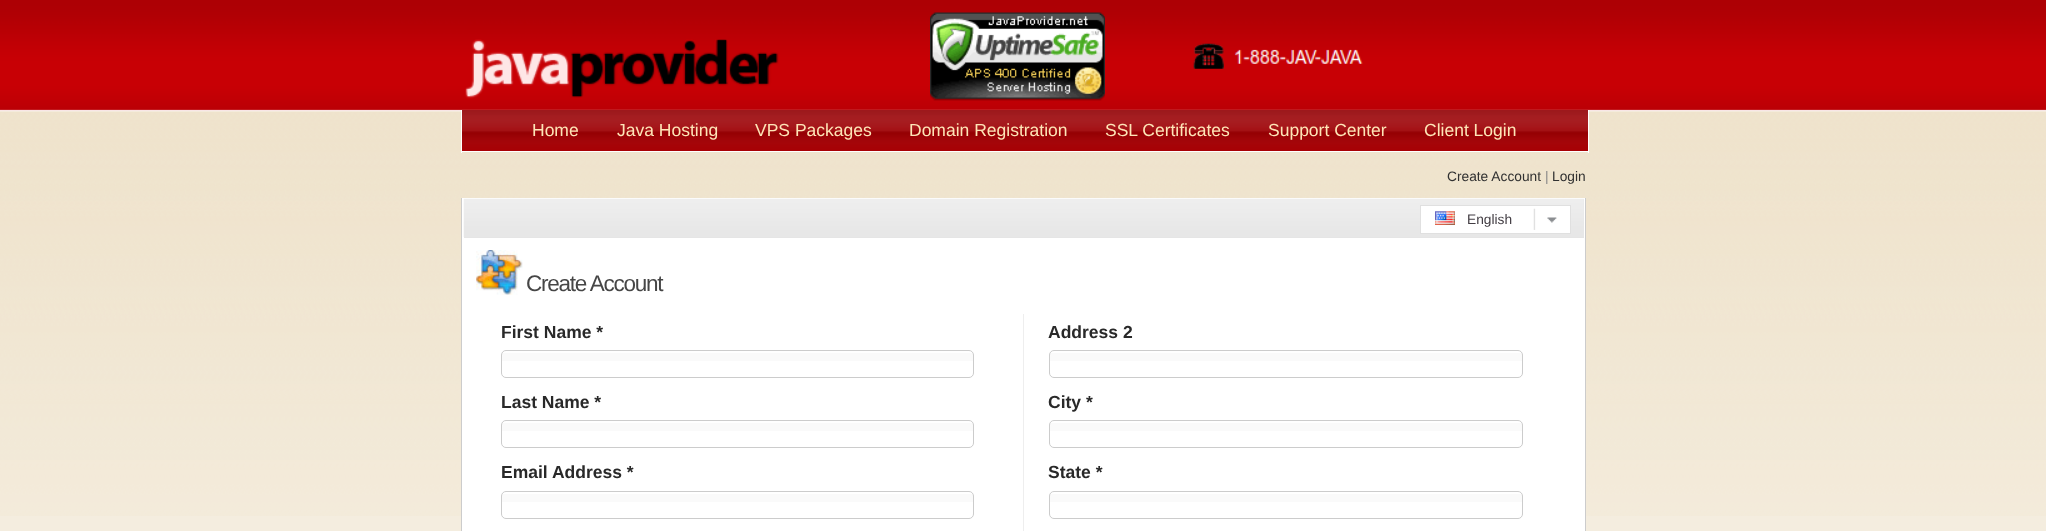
(async () => {
const canvas = document.querySelector("canvas")
canvas.width = 2046
canvas.height = 531
const c = canvas.getContext("2d")
c.miterLimit = 4
c.fontKerning = "normal"
function T(s,x,y){c.fillText(s,x,y)}
function R(x,y,w,h){c.fillRect(x,y,w,h)}
async function I(src,x,y,w,h){const img=new Image();img.src=src;await img.decode();c.drawImage(img,x,y,w,h)}
c.fillStyle="#f4eddf"
R(0,0,2046,531)
await I("1.png",0,0,2046,516)
await I("2.png",465,39,314,60)
await I("3.png",930,12,175,89)
await I("4.png",1193,43,170,26)
await I("5.png",462,110,1126,41)
c.fillStyle="#fff"
R(1588,110,1,43)
R(461,151,1128,1)
R(461,110,1,43)
c.font="17.5px Liberation Sans"
c.fillStyle="#fee5b7"
T("Home",532,136)
T("Java Hosting",617,136)
T("VPS Packages",755,136)
T("Domain Registration",909,136)
T("SSL Certificates",1105,136)
T("Support Center",1268,136)
T("Client Login",1424,136)
c.font="13.75px Liberation Sans"
c.fillStyle="#313131"
T("Create Account",1447,181)
c.fillStyle="#888"
T("|",1545,181)
c.fillStyle="#313131"
T("Login",1552,181)
c.fillStyle="#fff"
R(462,198,1123,333)
c.fillStyle="#ccc"
R(1585,198,1,333)
R(461,198,1,333)
c.fillStyle="#e5e5e5"
R(464,199,1120,39)
await I("6.png",463,198,1121,39)
c.fillStyle="#fff"
R(1421,206,149,27)
await I("7.png",1533,208,24,22)
c.strokeStyle="#e0e0e0"
c.strokeRect(1420.5,205.5,150,28)
await I("8.png",1435,211,20,14)
c.fillStyle="#423d43"
T("English",1467,224)
await I("9.png",476,250,47,45)
c.letterSpacing="-1.25px"
c.font="22.5px Liberation Sans"
c.fillStyle="#464646"
T("Create Account",526,291)
c.letterSpacing="0px"
c.font="bold 17.5px Liberation Sans"
c.fillStyle="#292929"
T("First Name *",501,338)
c.fillStyle="#fafafa"
R(502,353,471,8)
c.beginPath()
c.roundRect(501.5,350.5,472,27,4.5)
c.strokeStyle="#ccc"
c.stroke()
c.fillStyle="#eee"
R(1023,314,1,217)
c.fillStyle="#292929"
T("Last Name *",501,408)
c.fillStyle="#fafafa"
R(502,423,471,8)
c.beginPath()
c.roundRect(501.5,420.5,472,27,4.5)
c.stroke()
c.fillStyle="#292929"
T("Email Address *",501,478)
c.fillStyle="#fafafa"
R(502,494,471,8)
c.beginPath()
c.roundRect(501.5,491.5,472,27,4.5)
c.stroke()
c.fillStyle="#292929"
T("Address 2",1048,338)
c.fillStyle="#fafafa"
R(1049,353,473,8)
c.beginPath()
c.roundRect(1049.5,350.5,473,27,4.5)
c.stroke()
c.fillStyle="#292929"
T("City *",1048,408)
c.fillStyle="#fafafa"
R(1049,423,473,8)
c.beginPath()
c.roundRect(1049.5,420.5,473,27,4.5)
c.stroke()
c.fillStyle="#292929"
T("State *",1048,478)
c.fillStyle="#fafafa"
R(1049,494,473,8)
c.beginPath()
c.roundRect(1049.5,491.5,473,27,4.5)
c.stroke()
})()
